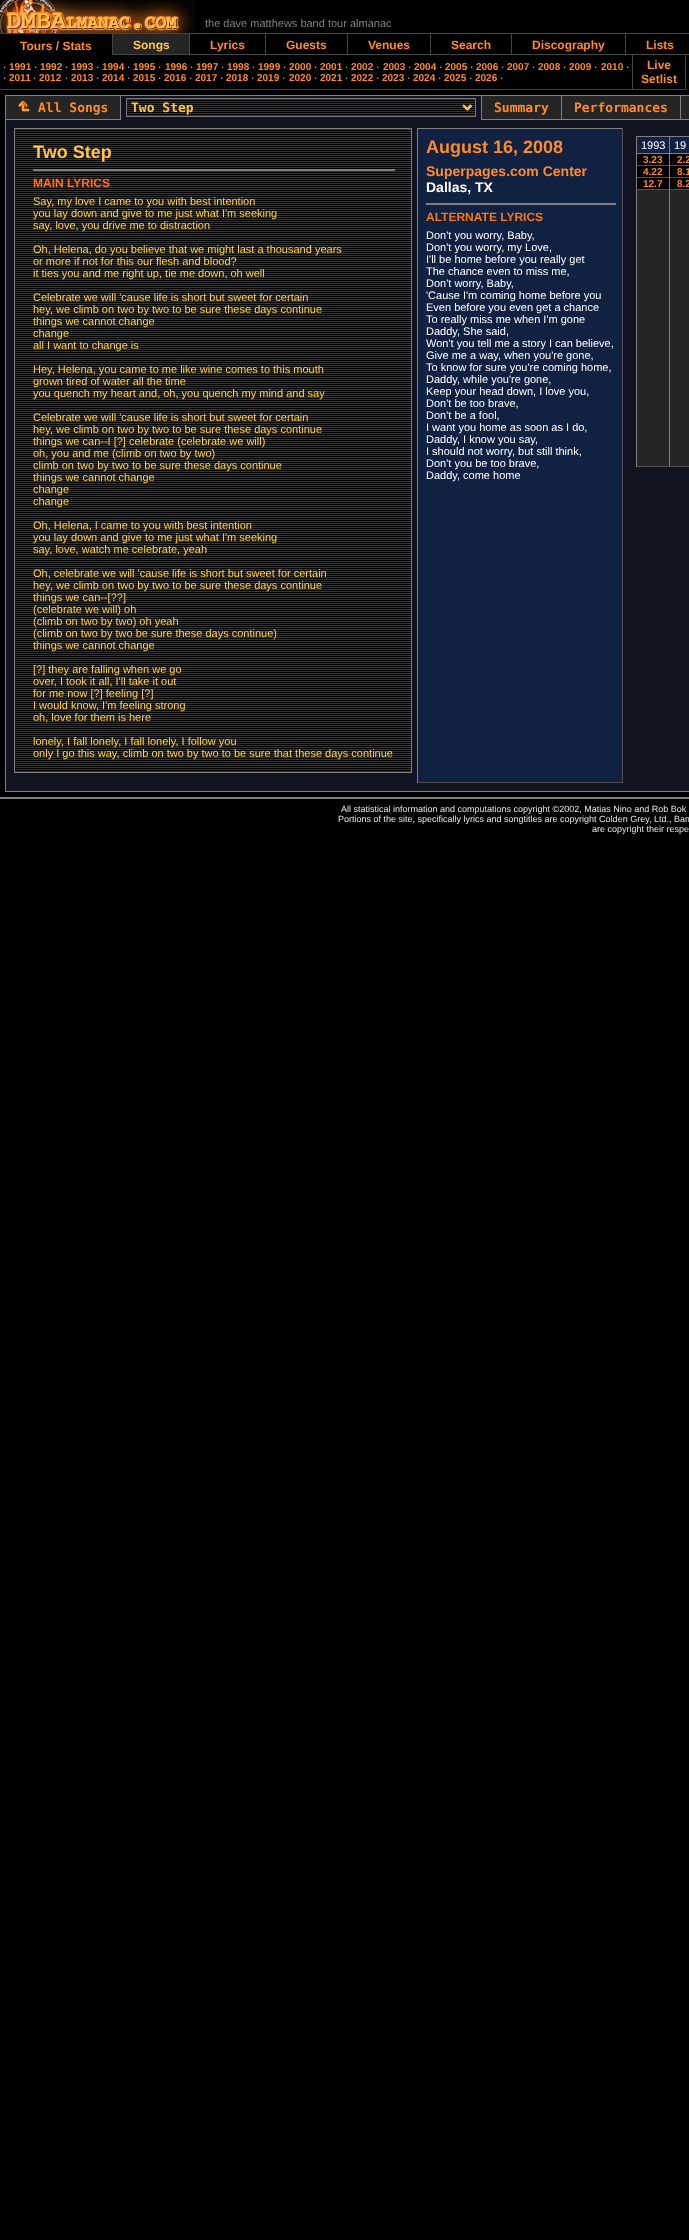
(async () => {
const canvas = document.querySelector("canvas")
canvas.width = 689
canvas.height = 2240
const c = canvas.getContext("2d")
c.miterLimit = 4
c.fontKerning = "normal"
function T(s,x,y){c.fillText(s,x,y)}
function R(x,y,w,h){c.fillRect(x,y,w,h)}
async function I(src,x,y,w,h){const img=new Image();img.src=src;await img.decode();c.drawImage(img,x,y,w,h)}
let path
c.fillStyle="#000"
R(0,0,689,2240)
await I("1.png",0,0,196,33)
c.font="11px Liberation Sans"
c.fillStyle="#808080"
T("the dave matthews band tour almanac",205,27)
c.fillStyle="#444"
R(0,33,689,1)
c.font="bold 12px Liberation Sans"
c.fillStyle="#ff8a29"
T("Tours / Stats",20,50)
c.fillStyle="#252525"
R(113,34,76,20)
c.fillStyle="#444"
R(112,54,577,1)
R(112,33,1,22)
c.fillStyle="#ffc449"
T("Songs",133,49)
c.fillStyle="#444"
R(189,33,1,22)
c.fillStyle="#ff8a29"
T("Lyrics",210,49)
c.fillStyle="#444"
R(265,33,1,22)
c.fillStyle="#ff8a29"
T("Guests",286,49)
c.fillStyle="#444"
R(347,33,1,22)
c.fillStyle="#ff8a29"
T("Venues",368,49)
c.fillStyle="#444"
R(430,33,1,22)
c.fillStyle="#ff8a29"
T("Search",451,49)
c.fillStyle="#444"
R(511,33,1,22)
c.fillStyle="#ff8a29"
T("Discography",532,49)
c.fillStyle="#444"
R(625,33,1,22)
c.fillStyle="#ff8a29"
T("Lists",646,49)
c.fillStyle="#444"
R(632,55,1,35)
R(0,89,633,1)
c.font="10px Liberation Sans"
c.fillStyle="#fff"
T("·",3,70)
c.font="bold 10px Liberation Sans"
c.fillStyle="#ff8a29"
T("1991",9,70)
c.font="10px Liberation Sans"
c.fillStyle="#fff"
T("·",34,70)
c.font="bold 10px Liberation Sans"
c.fillStyle="#ff8a29"
T("1992",40,70)
c.font="10px Liberation Sans"
c.fillStyle="#fff"
T("·",65,70)
c.font="bold 10px Liberation Sans"
c.fillStyle="#ff8a29"
T("1993",71,70)
c.font="10px Liberation Sans"
c.fillStyle="#fff"
T("·",96,70)
c.font="bold 10px Liberation Sans"
c.fillStyle="#ff8a29"
T("1994",102,70)
c.font="10px Liberation Sans"
c.fillStyle="#fff"
T("·",127,70)
c.font="bold 10px Liberation Sans"
c.fillStyle="#ff8a29"
T("1995",133,70)
c.font="10px Liberation Sans"
c.fillStyle="#fff"
T("·",158,70)
c.font="bold 10px Liberation Sans"
c.fillStyle="#ff8a29"
T("1996",165,70)
c.font="10px Liberation Sans"
c.fillStyle="#fff"
T("·",190,70)
c.font="bold 10px Liberation Sans"
c.fillStyle="#ff8a29"
T("1997",196,70)
c.font="10px Liberation Sans"
c.fillStyle="#fff"
T("·",221,70)
c.font="bold 10px Liberation Sans"
c.fillStyle="#ff8a29"
T("1998",227,70)
c.font="10px Liberation Sans"
c.fillStyle="#fff"
T("·",252,70)
c.font="bold 10px Liberation Sans"
c.fillStyle="#ff8a29"
T("1999",258,70)
c.font="10px Liberation Sans"
c.fillStyle="#fff"
T("·",283,70)
c.font="bold 10px Liberation Sans"
c.fillStyle="#ff8a29"
T("2000",289,70)
c.font="10px Liberation Sans"
c.fillStyle="#fff"
T("·",314,70)
c.font="bold 10px Liberation Sans"
c.fillStyle="#ff8a29"
T("2001",320,70)
c.font="10px Liberation Sans"
c.fillStyle="#fff"
T("·",345,70)
c.font="bold 10px Liberation Sans"
c.fillStyle="#ff8a29"
T("2002",351,70)
c.font="10px Liberation Sans"
c.fillStyle="#fff"
T("·",376,70)
c.font="bold 10px Liberation Sans"
c.fillStyle="#ff8a29"
T("2003",383,70)
c.font="10px Liberation Sans"
c.fillStyle="#fff"
T("·",408,70)
c.font="bold 10px Liberation Sans"
c.fillStyle="#ff8a29"
T("2004",414,70)
c.font="10px Liberation Sans"
c.fillStyle="#fff"
T("·",439,70)
c.font="bold 10px Liberation Sans"
c.fillStyle="#ff8a29"
T("2005",445,70)
c.font="10px Liberation Sans"
c.fillStyle="#fff"
T("·",470,70)
c.font="bold 10px Liberation Sans"
c.fillStyle="#ff8a29"
T("2006",476,70)
c.font="10px Liberation Sans"
c.fillStyle="#fff"
T("·",501,70)
c.font="bold 10px Liberation Sans"
c.fillStyle="#ff8a29"
T("2007",507,70)
c.font="10px Liberation Sans"
c.fillStyle="#fff"
T("·",532,70)
c.font="bold 10px Liberation Sans"
c.fillStyle="#ff8a29"
T("2008",538,70)
c.font="10px Liberation Sans"
c.fillStyle="#fff"
T("·",563,70)
c.font="bold 10px Liberation Sans"
c.fillStyle="#ff8a29"
T("2009",569,70)
c.font="10px Liberation Sans"
c.fillStyle="#fff"
T("·",594,70)
c.font="bold 10px Liberation Sans"
c.fillStyle="#ff8a29"
T("2010",601,70)
c.font="10px Liberation Sans"
c.fillStyle="#fff"
T("·",626,70)
T("·",3,81)
c.font="bold 10px Liberation Sans"
c.fillStyle="#ff8a29"
T("2011",9,81)
c.font="10px Liberation Sans"
c.fillStyle="#fff"
T("·",33,81)
c.font="bold 10px Liberation Sans"
c.fillStyle="#ff8a29"
T("2012",39,81)
c.font="10px Liberation Sans"
c.fillStyle="#fff"
T("·",65,81)
c.font="bold 10px Liberation Sans"
c.fillStyle="#ff8a29"
T("2013",71,81)
c.font="10px Liberation Sans"
c.fillStyle="#fff"
T("·",96,81)
c.font="bold 10px Liberation Sans"
c.fillStyle="#ff8a29"
T("2014",102,81)
c.font="10px Liberation Sans"
c.fillStyle="#fff"
T("·",127,81)
c.font="bold 10px Liberation Sans"
c.fillStyle="#ff8a29"
T("2015",133,81)
c.font="10px Liberation Sans"
c.fillStyle="#fff"
T("·",158,81)
c.font="bold 10px Liberation Sans"
c.fillStyle="#ff8a29"
T("2016",164,81)
c.font="10px Liberation Sans"
c.fillStyle="#fff"
T("·",189,81)
c.font="bold 10px Liberation Sans"
c.fillStyle="#ff8a29"
T("2017",195,81)
c.font="10px Liberation Sans"
c.fillStyle="#fff"
T("·",220,81)
c.font="bold 10px Liberation Sans"
c.fillStyle="#ff8a29"
T("2018",226,81)
c.font="10px Liberation Sans"
c.fillStyle="#fff"
T("·",251,81)
c.font="bold 10px Liberation Sans"
c.fillStyle="#ff8a29"
T("2019",257,81)
c.font="10px Liberation Sans"
c.fillStyle="#fff"
T("·",282,81)
c.font="bold 10px Liberation Sans"
c.fillStyle="#ff8a29"
T("2020",289,81)
c.font="10px Liberation Sans"
c.fillStyle="#fff"
T("·",314,81)
c.font="bold 10px Liberation Sans"
c.fillStyle="#ff8a29"
T("2021",320,81)
c.font="10px Liberation Sans"
c.fillStyle="#fff"
T("·",345,81)
c.font="bold 10px Liberation Sans"
c.fillStyle="#ff8a29"
T("2022",351,81)
c.font="10px Liberation Sans"
c.fillStyle="#fff"
T("·",376,81)
c.font="bold 10px Liberation Sans"
c.fillStyle="#ff8a29"
T("2023",382,81)
c.font="10px Liberation Sans"
c.fillStyle="#fff"
T("·",407,81)
c.font="bold 10px Liberation Sans"
c.fillStyle="#ff8a29"
T("2024",413,81)
c.font="10px Liberation Sans"
c.fillStyle="#fff"
T("·",438,81)
c.font="bold 10px Liberation Sans"
c.fillStyle="#ff8a29"
T("2025",444,81)
c.font="10px Liberation Sans"
c.fillStyle="#fff"
T("·",469,81)
c.font="bold 10px Liberation Sans"
c.fillStyle="#ff8a29"
T("2026",475,81)
c.font="10px Liberation Sans"
c.fillStyle="#fff"
T("·",500,81)
c.fillStyle="#444"
R(685,55,1,35)
R(633,89,53,1)
c.font="bold 12px Liberation Sans"
c.fillStyle="#ff8a29"
T("Live",647,69)
T("Setlist",641,83)
c.fillStyle="#808080"
R(0,797,689,2)
c.fillStyle="#252525"
R(6,96,114,23)
c.fillStyle="#808080"
R(5,95,684,1)
R(5,119,115,1)
R(5,95,1,25)
await I("2.png",18,101,12,11)
c.font="bold 13px DejaVu Sans Mono"
c.fillStyle="#ff8a29"
T("All Songs",38,112)
c.fillStyle="#121321"
R(121,96,360,24)
c.fillStyle="#808080"
R(120,95,1,25)
await I("3.png",127,99,348,17)
c.strokeStyle="#767676"
c.strokeRect(126.5,98.5,349,18)
path = new Path2D("M463.5 105.5l4 4l4-4")
c.strokeStyle="#ffc449"
c.lineWidth=2
c.stroke(path)
c.fillStyle="#ffc449"
T("Two Step",131,112)
c.fillStyle="#252525"
R(482,96,79,23)
c.fillStyle="#808080"
R(481,119,208,1)
R(481,95,1,25)
c.fillStyle="#ff8a29"
T("Summary",494,112)
c.fillStyle="#252525"
R(562,96,118,23)
c.fillStyle="#808080"
R(561,95,1,25)
c.fillStyle="#ff8a29"
T("Performances",574,112)
c.fillStyle="#252525"
R(681,96,8,23)
c.fillStyle="#808080"
R(680,95,1,25)
c.fillStyle="#121321"
R(6,120,683,671)
c.fillStyle="#808080"
R(5,791,684,1)
R(5,120,1,672)
await I("4.png",15,129,396,643)
c.strokeStyle="#808080"
c.lineWidth=1
c.strokeRect(14.5,128.5,397,644)
c.font="bold 18px Liberation Sans"
c.fillStyle="#ffc449"
T("Two Step",33,158)
c.fillStyle="#808080"
R(33,169,362,2)
c.font="bold 12px Liberation Sans"
c.fillStyle="#f97515"
T("MAIN LYRICS",33,187)
c.font="11px Liberation Sans"
c.fillStyle="#ffd34b"
T("Say, my love I came to you with best intention",33,205)
T("you lay down and give to me just what I'm seeking",33,217)
T("say, love, you drive me to distraction",33,229)
T("Oh, Helena, do you believe that we might last a thousand years",33,253)
T("or more if not for this our flesh and blood?",33,265)
T("it ties you and me right up, tie me down, oh well",33,277)
T("Celebrate we will 'cause life is short but sweet for certain",33,301)
T("hey, we climb on two by two to be sure these days continue",33,313)
T("things we cannot change",33,325)
T("change",33,337)
T("all I want to change is",33,349)
T("Hey, Helena, you came to me like wine comes to this mouth",33,373)
T("grown tired of water all the time",33,385)
T("you quench my heart and, oh, you quench my mind and say",33,397)
T("Celebrate we will 'cause life is short but sweet for certain",33,421)
T("hey, we climb on two by two to be sure these days continue",33,433)
T("things we can--I [?] celebrate (celebrate we will)",33,445)
T("oh, you and me (climb on two by two)",33,457)
T("climb on two by two to be sure these days continue",33,469)
T("things we cannot change",33,481)
T("change",33,493)
T("change",33,505)
T("Oh, Helena, I came to you with best intention",33,529)
T("you lay down and give to me just what I'm seeking",33,541)
T("say, love, watch me celebrate, yeah",33,553)
T("Oh, celebrate we will 'cause life is short but sweet for certain",33,577)
T("hey, we climb on two by two to be sure these days continue",33,589)
T("things we can--[??]",33,601)
T("(celebrate we will) oh",33,613)
T("(climb on two by two) oh yeah",33,625)
T("(climb on two by two be sure these days continue)",33,637)
T("things we cannot change",33,649)
T("[?] they are falling when we go",33,673)
T("over, I took it all, I'll take it out",33,685)
T("for me now [?] feeling [?]",33,697)
T("I would know, I'm feeling strong",33,709)
T("oh, love for them is here",33,721)
T("lonely, I fall lonely, I fall lonely, I follow you",33,745)
T("only I go this way, climb on two by two to be sure that these days continue",33,757)
c.fillStyle="#102142"
R(418,129,204,653)
c.fillStyle="#808080"
R(417,128,206,1)
c.fillStyle="#4f4f4f"
R(622,128,1,655)
R(417,782,206,1)
c.fillStyle="#808080"
R(417,128,1,655)
c.font="bold 18px Liberation Sans"
c.fillStyle="#ff8a29"
T("August 16, 2008",426,153)
c.font="bold 14px Liberation Sans"
T("Superpages.com Center",426,176)
c.fillStyle="#fff"
T("Dallas, TX",426,192)
c.fillStyle="#808080"
R(426,203,190,2)
c.font="bold 12px Liberation Sans"
c.fillStyle="#f97515"
T("ALTERNATE LYRICS",426,221)
c.font="11px Liberation Sans"
c.fillStyle="#fff"
T("Don't you worry, Baby,",426,239)
T("Don't you worry, my Love,",426,251)
T("I'll be home before you really get",426,263)
T("The chance even to miss me,",426,275)
T("Don't worry, Baby,",426,287)
T("'Cause I'm coming home before you",426,299)
T("Even before you even get a chance",426,311)
T("To really miss me when I'm gone",426,323)
T("Daddy, She said,",426,335)
T("Won't you tell me a story I can believe,",426,347)
T("Give me a way, when you're gone,",426,359)
T("To know for sure you're coming home,",426,371)
T("Daddy, while you're gone,",426,383)
T("Keep your head down, I love you,",426,395)
T("Don't be too brave,",426,407)
T("Don't be a fool,",426,419)
T("I want you home as soon as I do,",426,431)
T("Daddy, I know you say,",426,443)
T("I should not worry, but still think,",426,455)
T("Don't you be too brave,",426,467)
T("Daddy, come home",426,479)
c.fillStyle="#808080"
R(636,136,53,1)
c.fillStyle="#4f4f4f"
R(636,466,53,1)
c.fillStyle="#808080"
R(636,136,1,331)
c.fillStyle="#252525"
R(637,190,52,276)
c.fillStyle="#808080"
R(669,137,1,329)
c.fillStyle="#102142"
R(637,137,32,16)
c.fillStyle="#808080"
R(637,153,32,1)
c.fillStyle="#fff"
T("1993",641,149)
c.fillStyle="#000"
R(637,154,32,11)
c.fillStyle="#4f4f4f"
R(637,165,32,1)
c.font="bold 10px Liberation Sans"
c.fillStyle="#ff8a29"
T("3.23",643,163)
c.fillStyle="#000"
R(637,166,32,11)
c.fillStyle="#4f4f4f"
R(637,177,32,1)
c.fillStyle="#ff8a29"
T("4.22",643,175)
c.fillStyle="#000"
R(637,178,32,11)
c.fillStyle="#4f4f4f"
R(637,189,32,1)
c.fillStyle="#ff8a29"
T("12.7",643,187)
c.fillStyle="#102142"
R(670,137,19,16)
c.fillStyle="#808080"
R(670,153,19,1)
c.font="11px Liberation Sans"
c.fillStyle="#fff"
T("19",674,149)
c.fillStyle="#000"
R(670,154,19,11)
c.fillStyle="#4f4f4f"
R(670,165,19,1)
c.font="bold 10px Liberation Sans"
c.fillStyle="#ff8a29"
T("2.2",677,163)
c.fillStyle="#000"
R(670,166,19,11)
c.fillStyle="#4f4f4f"
R(670,177,19,1)
c.fillStyle="#ff8a29"
T("8.1",677,175)
c.fillStyle="#000"
R(670,178,19,11)
c.fillStyle="#4f4f4f"
R(670,189,19,1)
c.fillStyle="#ff8a29"
T("8.2",677,187)
c.font="9px Liberation Sans"
c.fillStyle="#e5e5e5"
T("All statistical information and computations copyright ©2002, Matias Nino and Rob Bok",341,812)
T("Portions of the site, specifically lyrics and songtitles are copyright Colden Grey, Ltd., Bam",338,822)
T("are copyright their respe",592,832)
})()
